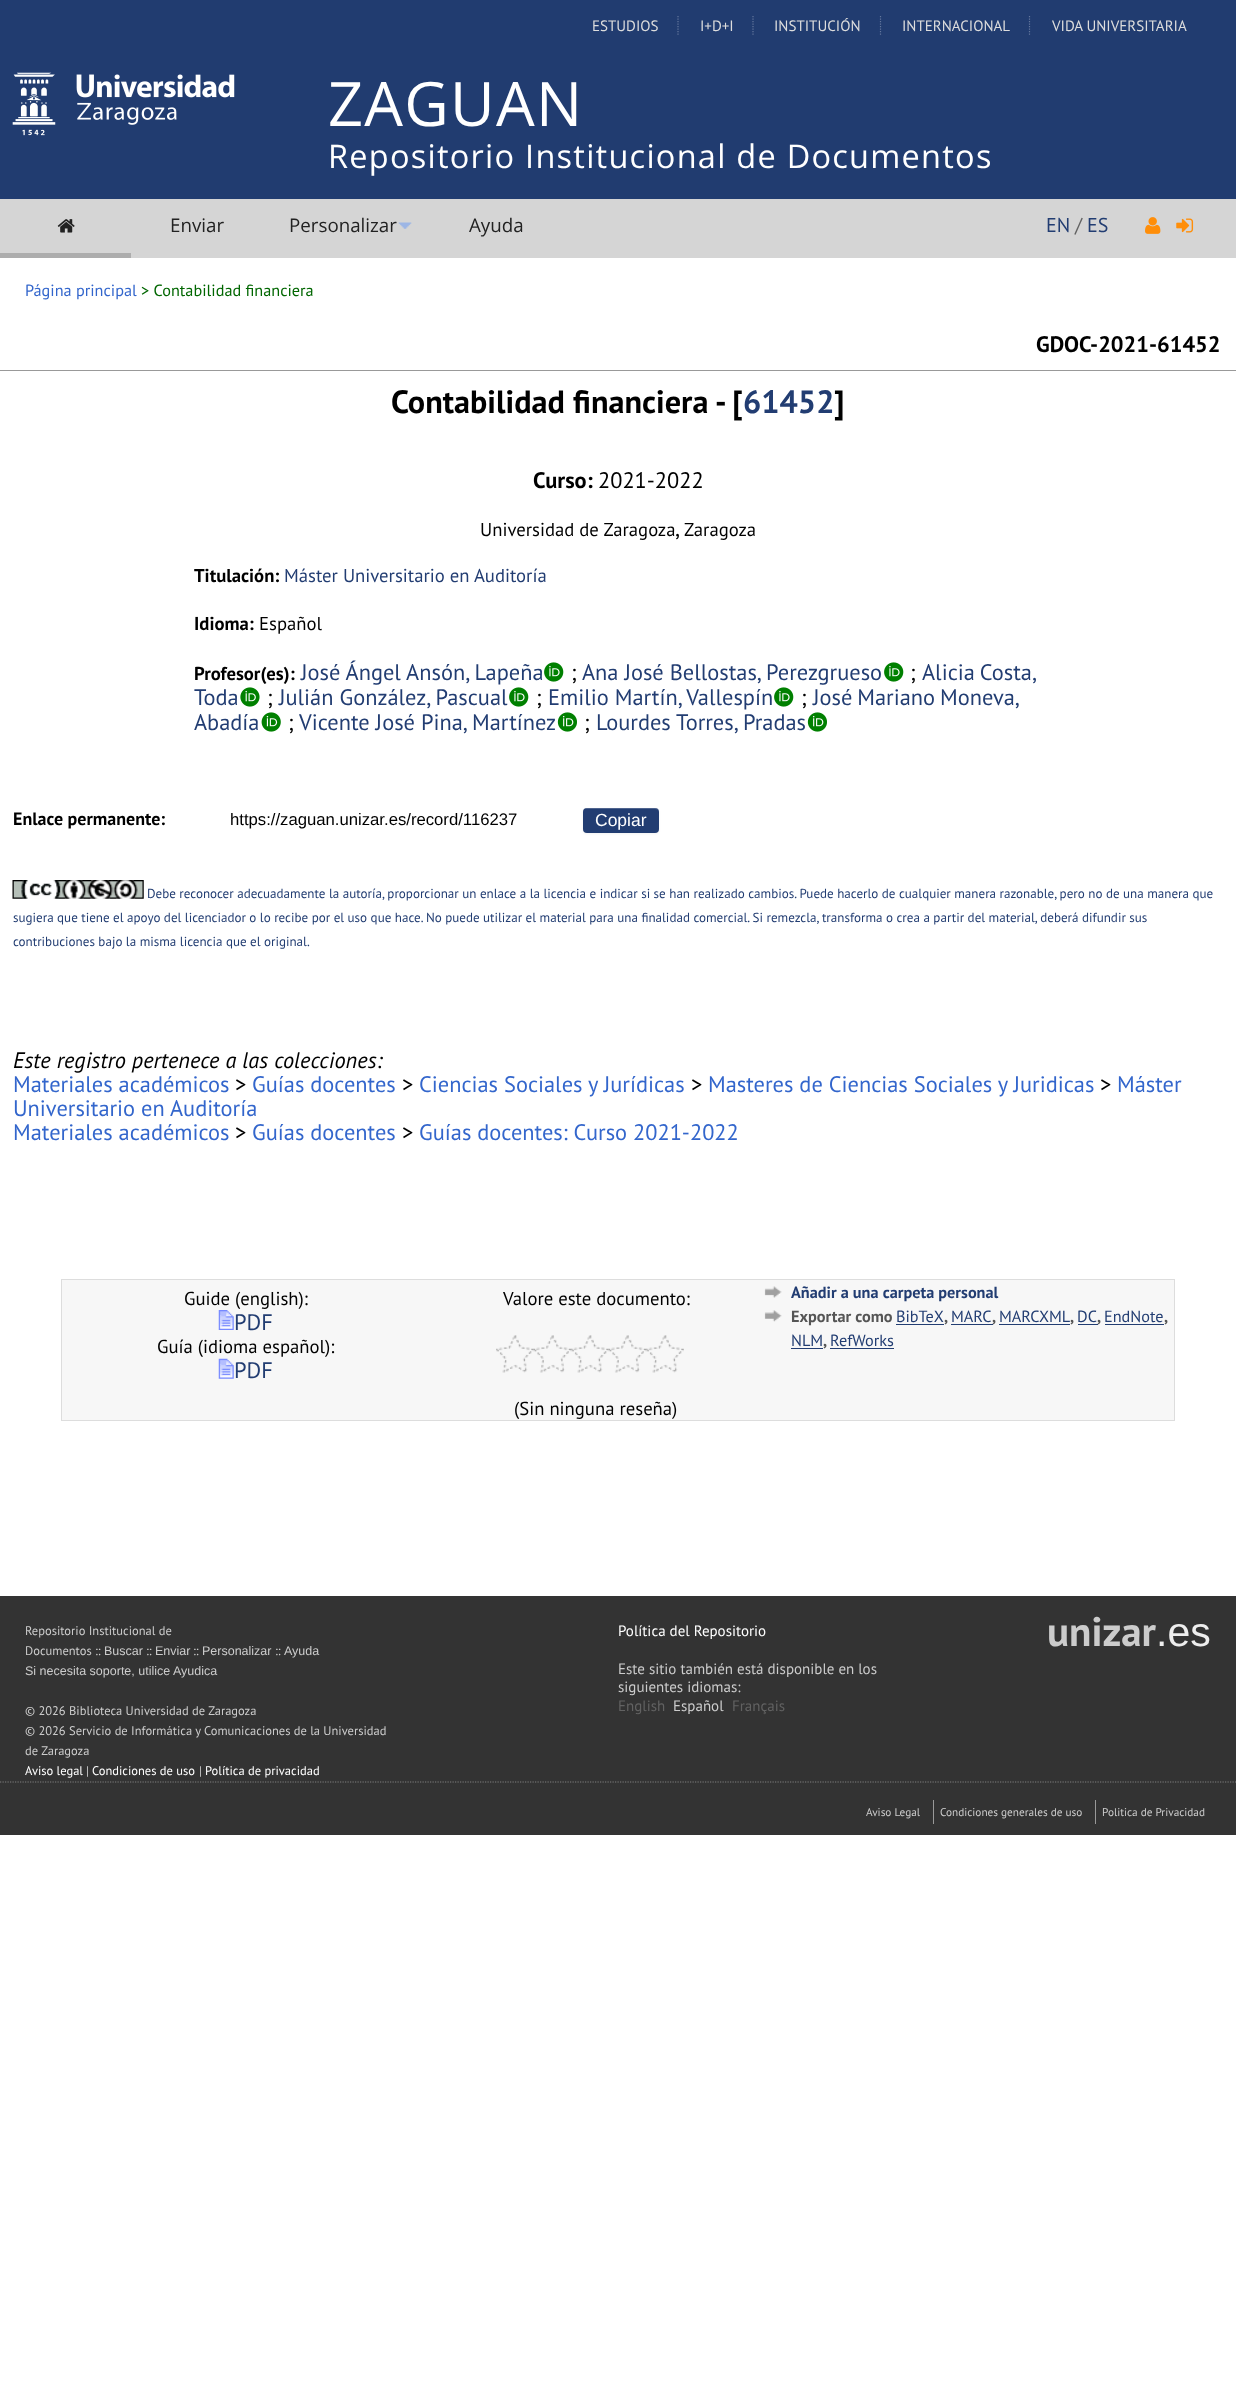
(async () => {
const canvas = document.querySelector("canvas")
canvas.width = 1236
canvas.height = 2397
const c = canvas.getContext("2d")
c.miterLimit = 4
c.fontKerning = "normal"
function T(s,x,y){c.fillText(s,x,y)}
function R(x,y,w,h){c.fillRect(x,y,w,h)}
function Q(x,y,w,h,r){c.beginPath();c.roundRect(x,y,w,h,r);c.fill()}
async function I(src,x,y,w,h){const img=new Image();img.src=src;await img.decode();c.drawImage(img,x,y,w,h)}
let path
c.fillStyle="#fff"
R(0,0,1236,2397)
c.fillStyle="#213c70"
R(0,0,1236,199)
c.font="15px PT Sans"
c.fillStyle="#ddd"
T("ESTUDIOS",592,31)
path = new Path2D("M678 16v19")
c.strokeStyle="#64779d"
c.lineWidth=1.2
c.setLineDash([1.25,1.25])
c.stroke(path)
T("I+D+I",700,31)
path = new Path2D("M753 16v19")
c.stroke(path)
T("INSTITUCIÓN",774,31)
path = new Path2D("M880.5 16v19")
c.stroke(path)
T("INTERNACIONAL",902,31)
path = new Path2D("M1029.5 16v19")
c.stroke(path)
T("VIDA UNIVERSITARIA",1052,31)
await I("1.png",12,72,223,64)
c.letterSpacing="1.25px"
c.font="61.25px Open Sans"
c.fillStyle="#fff"
T("ZAGUAN",328,126)
c.font="32.5px Open Sans"
T("Repositorio Institucional de Documentos",328,168)
c.fillStyle="#d5d5d5"
R(0,199,1236,59)
c.fillStyle="#adadad"
R(0,253,131,5)
await I("2.png",57,219,18,14)
c.letterSpacing="0px"
c.font="18.75px Open Sans"
c.fillStyle="#222"
T("Enviar",170,232)
T("Personalizar",289,232)
await I("3.png",398,222,14,7)
T("Ayuda",469,232)
c.font="20px PT Sans"
c.fillStyle="#223d72"
T("EN",1046,232)
c.fillStyle="#626262"
T("/",1075,232)
c.fillStyle="#223d72"
T("ES",1087,232)
await I("4.png",1145,217,16,17)
await I("5.png",1176,218,18,15)
c.font="16.25px PT Sans"
c.fillStyle="#36c"
T("Página principal",25,296)
c.fillStyle="#060"
T("> Contabilidad financiera",141,296)
c.font="bold 22.4px PT Sans"
c.fillStyle="#000"
T("GDOC-2021-61452",1036,352)
c.fillStyle="#999"
R(0,370,1236,1)
c.font="bold 32.25px PT Sans"
c.fillStyle="#000"
T("Contabilidad financiera - [",391,413)
c.fillStyle="#223d72"
T("61452",743,413)
c.fillStyle="#000"
T("]",834,413)
c.font="bold 22.4px PT Sans"
T("Curso:",533,488)
c.font="22.4px PT Sans"
T("2021-2022",598,488)
c.font="18.7px PT Sans"
T("Universidad de Zaragoza",480,536)
c.font="22.4px PT Sans"
T(",",675,536)
c.font="18.7px PT Sans"
T("Zaragoza",684,536)
c.font="bold 18.7px PT Sans"
T("Titulación:",194,582)
c.font="18.7px PT Sans"
c.fillStyle="#223d72"
T("Máster Universitario en Auditoría",284,582)
c.font="bold 18.7px PT Sans"
c.fillStyle="#000"
T("Idioma:",194,630)
c.font="18.7px PT Sans"
T("Español",259,630)
c.font="bold 18.7px PT Sans"
T("Profesor(es):",194,680)
c.font="22.4px PT Sans"
c.fillStyle="#223d72"
T("José Ángel Ansón, Lapeña",301,680)
await I("6.png",544,662,20,20)
c.fillStyle="#000"
T(";",571,680)
c.fillStyle="#223d72"
T("Ana José Bellostas, Perezgrueso",582,680)
await I("6.png",884,662,20,20)
c.fillStyle="#000"
T(";",910,680)
c.wordSpacing="-1px"
c.fillStyle="#223d72"
T("Alicia Costa,",922,680)
c.wordSpacing="0px"
T("Toda",194,705)
await I("7.png",240,687,20,20)
c.fillStyle="#000"
T(";",267,705)
c.fillStyle="#223d72"
T("Julián González, Pascual",279,705)
await I("6.png",509,687,20,20)
c.fillStyle="#000"
T(";",536,705)
c.fillStyle="#223d72"
T("Emilio Martín, Vallespín",548,705)
await I("6.png",774,687,20,20)
c.fillStyle="#000"
T(";",801,705)
c.wordSpacing="-1px"
c.fillStyle="#223d72"
T("José Mariano Moneva,",813,705)
c.wordSpacing="0px"
T("Abadía",194,730)
await I("8.png",261,712,20,20)
c.fillStyle="#000"
T(";",288,730)
c.fillStyle="#223d72"
T("Vicente José Pina, Martínez",299,730)
await I("9.png",557,712,20,20)
c.fillStyle="#000"
T(";",584,730)
c.fillStyle="#223d72"
T("Lourdes Torres, Pradas",596,730)
await I("9.png",807,712,20,20)
c.font="bold 18px PT Sans"
c.fillStyle="#000"
T("Enlace permanente:",13,825)
c.font="16.7px Liberation Sans"
T("https://zaguan.unizar.es/record/116237",230,825)
c.fillStyle="#0000000d"
c.filter="blur(1px)"
c.beginPath()
c.roundRect(583,809,76,25,4)
c.fill()
c.filter="none"
c.fillStyle="#223d72"
Q(583,808,76,25,4)
c.fillStyle="#ffffff33"
path = new Path2D("M586 809h69c2 0 4 1 4 3c0-2-2-4-4-4h-68c-1 0-2 1-3 1z")
c.fill(path)
c.font="17.5px Liberation Sans"
c.fillStyle="#fff"
T("Copiar",595,826)
await I("10.png",12,880,132,19)
c.font="13.07px PT Sans"
c.fillStyle="#223d72"
T("Debe reconocer adecuadamente la autoría, proporcionar un enlace a la licencia e indicar si se han realizado cambios. Puede hacerlo de cualquier manera razonable, pero no de una manera que",147,898)
T("sugiera que tiene el apoyo del licenciador o lo recibe por el uso que hace. No puede utilizar el material para una finalidad comercial. Si remezcla, transforma o crea a partir del material, deberá difundir sus",13,922)
T("contribuciones bajo la misma licencia que el original.",13,946)
c.font="italic 22.4px PT Sans"
c.fillStyle="#000"
T("Este registro pertenece a las colecciones:",13,1068)
c.font="22.4px PT Sans"
c.fillStyle="#36c"
T("Materiales académicos",13,1092)
c.fillStyle="#000"
T(">",235,1092)
c.fillStyle="#36c"
T("Guías docentes",252,1092)
c.fillStyle="#000"
T(">",402,1092)
c.fillStyle="#36c"
T("Ciencias Sociales y Jurídicas",419,1092)
c.fillStyle="#000"
T(">",691,1092)
c.fillStyle="#36c"
T("Masteres de Ciencias Sociales y Juridicas",708,1092)
c.fillStyle="#000"
T(">",1100,1092)
c.fillStyle="#36c"
T("Máster",1117,1092)
T("Universitario en Auditoría",13,1116)
T("Materiales académicos",13,1140)
c.fillStyle="#000"
T(">",235,1140)
c.fillStyle="#36c"
T("Guías docentes",252,1140)
c.fillStyle="#000"
T(">",402,1140)
c.fillStyle="#36c"
T("Guías docentes: Curso 2021-2022",419,1140)
c.fillStyle="#f7f7f7"
R(62,1280,1112,140)
c.fillStyle="#ddd"
R(61,1279,1114,1)
R(1174,1279,1,142)
R(61,1420,1114,1)
R(61,1279,1,142)
c.font="18.7px PT Sans"
c.fillStyle="#000"
T("Guide (english):",184,1305)
await I("11.png",218,1310,16,20)
c.font="22.4px PT Sans"
c.fillStyle="#223d72"
T("PDF",234,1330)
c.font="18.7px PT Sans"
c.fillStyle="#000"
T("Guía (idioma español):",157,1353)
await I("12.png",218,1358,16,21)
c.font="22.4px PT Sans"
c.fillStyle="#223d72"
T("PDF",234,1378)
c.font="18.7px PT Sans"
c.fillStyle="#000"
T("Valore este documento:",503,1305)
await I("13.png",496,1335,38,38)
await I("14.png",533,1335,39,38)
await I("15.png",571,1335,38,38)
await I("14.png",608,1335,39,38)
await I("15.png",646,1335,38,38)
T("(Sin ninguna reseña)",514,1415)
await I("16.png",764,1286,18,12)
c.font="bold 16.25px PT Sans"
c.fillStyle="#223d72"
T("Añadir a una carpeta personal",791,1298)
await I("17.png",764,1310,18,12)
c.fillStyle="#555"
T("Exportar como",791,1322)
c.font="16.25px PT Sans"
c.fillStyle="#223d72"
T("BibTeX",896,1322)
R(896,1324,48,1)
c.font="bold 16.25px PT Sans"
c.fillStyle="#555"
T(",",944,1322)
c.font="16.25px PT Sans"
c.fillStyle="#223d72"
T("MARC",951,1322)
R(951,1324,42,1)
c.font="bold 16.25px PT Sans"
c.fillStyle="#555"
T(",",992,1322)
c.font="16.25px PT Sans"
c.fillStyle="#223d72"
T("MARCXML",999,1322)
R(999,1324,71,1)
c.font="bold 16.25px PT Sans"
c.fillStyle="#555"
T(",",1070,1322)
c.font="16.25px PT Sans"
c.fillStyle="#223d72"
T("DC",1077,1322)
R(1078,1324,20,1)
c.font="bold 16.25px PT Sans"
c.fillStyle="#555"
T(",",1097,1322)
c.font="16.25px PT Sans"
c.fillStyle="#223d72"
T("EndNote",1104,1322)
R(1105,1324,59,1)
c.font="bold 16.25px PT Sans"
c.fillStyle="#555"
T(",",1164,1322)
c.font="16.25px PT Sans"
c.fillStyle="#223d72"
T("NLM",791,1346)
R(791,1348,32,1)
c.font="bold 16.25px PT Sans"
c.fillStyle="#555"
T(",",823,1346)
c.font="16.25px PT Sans"
c.fillStyle="#223d72"
T("RefWorks",830,1346)
R(830,1348,64,1)
c.fillStyle="#333"
R(0,1596,1236,239)
c.font="12.5px PT Sans"
c.fillStyle="#ccc"
T("Repositorio Institucional de",25,1635)
T("Documentos ::",25,1655)
c.font="12.5px Liberation Sans"
T("Buscar",104,1655)
c.font="12.5px PT Sans"
T("::",146,1655)
c.font="12.5px Liberation Sans"
T("Enviar",155,1655)
c.font="12.5px PT Sans"
T("::",193,1655)
c.font="12.5px Liberation Sans"
T("Personalizar",202,1655)
c.font="12.5px PT Sans"
T("::",275,1655)
c.font="12.5px Liberation Sans"
T("Ayuda",284,1655)
T("Si necesita soporte, utilice Ayudica",25,1675)
c.font="12.5px PT Sans"
T("© 2026 Biblioteca Universidad de Zaragoza",25,1715)
T("© 2026 Servicio de Informática y Comunicaciones de la Universidad",25,1735)
T("de Zaragoza",25,1755)
c.fillStyle="#fff"
T("Aviso legal",25,1775)
c.fillStyle="#ccc"
T("|",86,1775)
c.fillStyle="#fff"
T("Condiciones de uso",92,1775)
c.fillStyle="#ccc"
T("|",199,1775)
c.fillStyle="#fff"
T("Política de privacidad",205,1775)
c.font="15px PT Sans"
T("Política del Repositorio",618,1636)
c.fillStyle="#ccc"
T("Este sitio también está disponible en los",618,1674)
T("siguientes idiomas:",618,1692)
c.fillStyle="#626262"
T("English",618,1711)
c.fillStyle="#ccc"
T("Español",673,1711)
c.fillStyle="#626262"
T("Français",732,1711)
c.font="bold 41px PT Sans"
c.fillStyle="#ccc"
T("unizar",1047,1646)
c.font="41px Liberation Sans"
c.fillStyle="#eee"
T(".es",1156,1646)
path = new Path2D("M-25 1782h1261")
c.strokeStyle="#808080"
c.stroke(path)
c.font="11.25px PT Sans"
c.fillStyle="#ccc"
T("Aviso Legal",866,1816)
c.fillStyle="#999"
R(933,1800,1,24)
c.fillStyle="#ccc"
T("Condiciones generales de uso",940,1816)
c.fillStyle="#999"
R(1095,1800,1,24)
c.fillStyle="#ccc"
T("Politica de Privacidad",1102,1816)
})()
